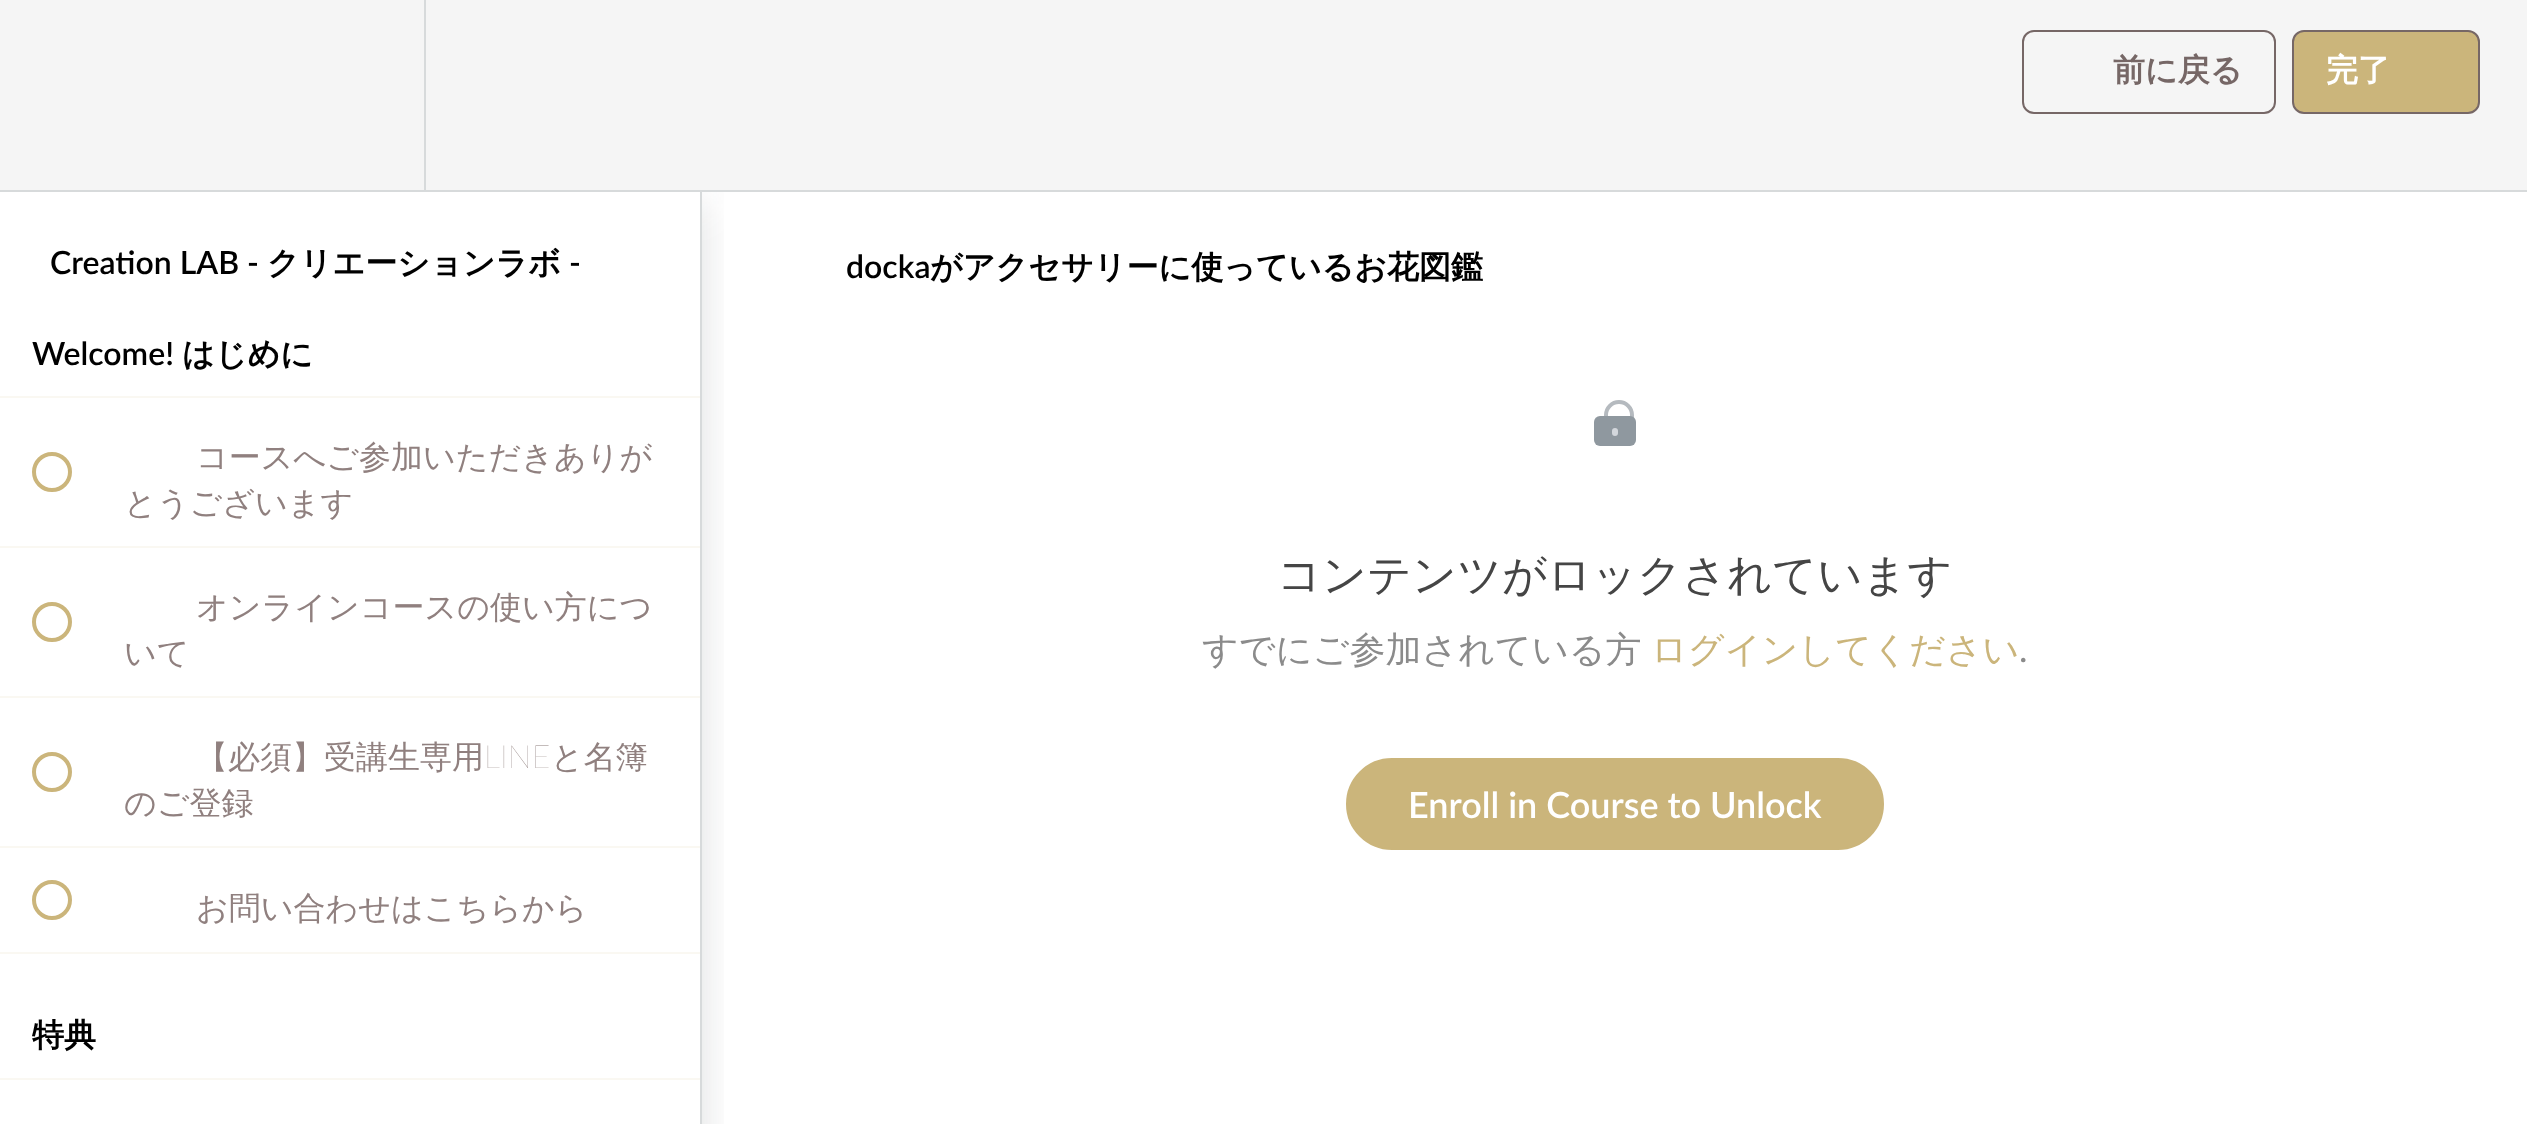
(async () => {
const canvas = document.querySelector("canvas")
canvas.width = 2527
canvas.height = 1124
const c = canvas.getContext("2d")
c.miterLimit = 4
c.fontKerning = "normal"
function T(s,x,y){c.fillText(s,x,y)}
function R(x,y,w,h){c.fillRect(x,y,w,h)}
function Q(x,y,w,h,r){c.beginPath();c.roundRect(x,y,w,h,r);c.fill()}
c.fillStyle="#fff"
R(0,0,2527,1124)
c.save()
c.beginPath()
c.rect(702,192,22,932)
c.clip()
c.fillStyle="#20272d26"
c.filter="blur(20px)"
c.beginPath()
c.rect(0,204,702,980)
c.fill()
c.filter="none"
c.restore()
c.fillStyle="#f5f5f5"
R(0,0,2527,190)
c.fillStyle="#d7dadb"
R(0,190,2527,2)
R(424,0,2,190)
c.beginPath()
c.roundRect(2023,31,252,82,11)
c.strokeStyle="#766766"
c.lineWidth=2
c.stroke()
c.font="bold 32px WenQuanYi Zen Hei"
c.fillStyle="#766766"
T("前に戻る",2113,81)
c.fillStyle="#cbb57b"
c.beginPath()
c.roundRect(2293,31,186,82,11)
c.fill()
c.stroke()
c.fillStyle="#fff"
T("完了",2326,81)
c.fillStyle="#d7dadb"
R(700,192,2,932)
c.font="600 32px Lato"
c.fillStyle="#000"
T("Creation LAB -",50,274)
c.font="bold 32px WenQuanYi Zen Hei"
T("クリエーションラボ",267,274)
c.font="600 32px Lato"
T("-",569,274)
c.fillStyle="#faf8f2"
R(0,396,700,2)
c.fillStyle="#000"
T("Welcome!",32,365)
c.font="bold 32px WenQuanYi Zen Hei"
T("はじめに",182,365)
c.fillStyle="#faf8f2"
R(0,546,700,2)
c.beginPath()
c.arc(52,472,18,0,7)
c.strokeStyle="#cbb57b"
c.lineWidth=4
c.stroke()
c.font="500 32px WenQuanYi Zen Hei"
c.fillStyle="#90807f"
T("コースへご参加いただきありが",196,468)
T("とうございます",124,514)
c.fillStyle="#faf8f2"
R(0,696,700,2)
c.beginPath()
c.arc(52,622,18,0,7)
c.stroke()
c.fillStyle="#90807f"
T("オンラインコースの使い方につ",196,618)
T("いて",124,664)
c.fillStyle="#faf8f2"
R(0,846,700,2)
c.beginPath()
c.arc(52,772,18,0,7)
c.stroke()
c.fillStyle="#90807f"
T("【必須】受講生専用",196,768)
c.font="200 32px Lato"
T("LINE",484,768)
c.font="500 32px WenQuanYi Zen Hei"
T("と名簿",551,768)
T("のご登録",124,814)
c.fillStyle="#faf8f2"
R(0,952,700,2)
c.beginPath()
c.arc(52,900,18,0,7)
c.stroke()
c.fillStyle="#90807f"
T("お問い合わせはこちらから",196,919)
c.fillStyle="#faf8f2"
R(0,1078,700,2)
c.font="bold 32px WenQuanYi Zen Hei"
c.fillStyle="#000"
T("特典",32,1046)
c.font="600 32px Lato"
T("docka",846,278)
c.font="bold 32px WenQuanYi Zen Hei"
T("がアクセサリーに使っているお花図鑑",930,278)
c.beginPath()
c.roundRect(1606,402,26,40,13)
c.strokeStyle="#b5babf"
c.stroke()
c.fillStyle="#8f989f"
Q(1594,416,42,30,6)
c.fillStyle="#d3d7dc"
Q(1612,428,6,8,3)
c.font="500 44px WenQuanYi Zen Hei"
c.fillStyle="#454545"
T("コンテンツがロックされています",1277,590)
c.font="500 36px WenQuanYi Zen Hei"
c.fillStyle="#8b8b8b"
T("すでにご参加されている方",1202,662)
c.fillStyle="#cbb57b"
T("ログインしてください",1651,662)
c.font="36px Lato"
c.fillStyle="#8b8b8b"
T(".",2019,662)
c.fillStyle="#cbb57b"
c.beginPath()
c.roundRect(1347,759,536,90,45)
c.fill()
c.strokeStyle="#cbb57b"
c.lineWidth=2
c.stroke()
c.font="600 36px Lato"
c.fillStyle="#fff"
T("Enroll in Course to Unlock",1408,818)
})()
